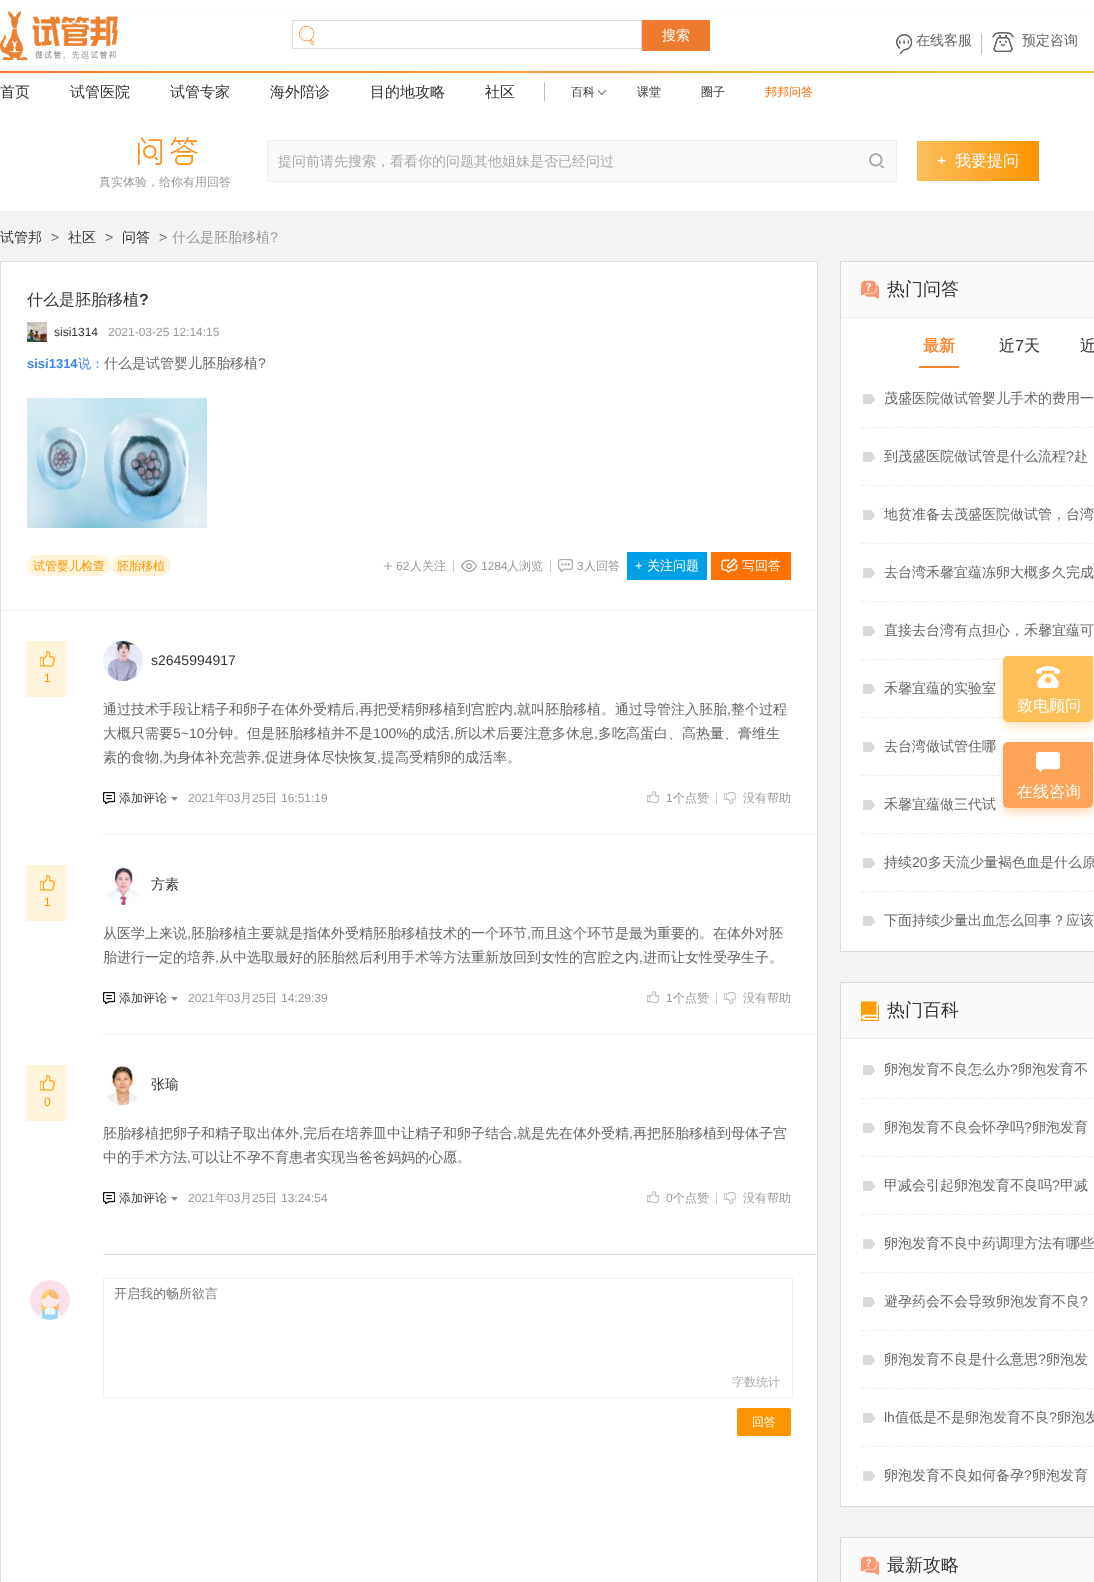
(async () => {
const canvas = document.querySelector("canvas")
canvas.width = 1094
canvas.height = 1582
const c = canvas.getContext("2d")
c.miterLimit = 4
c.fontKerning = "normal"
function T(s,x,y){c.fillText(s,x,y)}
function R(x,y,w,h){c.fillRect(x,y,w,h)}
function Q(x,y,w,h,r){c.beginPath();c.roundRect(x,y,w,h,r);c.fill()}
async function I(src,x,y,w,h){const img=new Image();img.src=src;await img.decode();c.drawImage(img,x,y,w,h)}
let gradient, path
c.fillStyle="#fff"
R(0,0,1094,1582)
c.save()
c.beginPath()
c.rect(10,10,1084,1)
c.clip()
c.fillStyle="#66666633"
c.filter="blur(2px)"
c.beginPath()
c.rect(6,13,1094,100)
c.fill()
c.filter="none"
c.restore()
await I("1.png",0,11,118,49)
c.strokeStyle="#ddd"
c.strokeRect(292.5,20.5,349,28)
await I("2.png",299,25,16,20)
c.fillStyle="#ef7b31"
R(642,20,68,31)
c.font="500 14px WenQuanYi Zen Hei"
c.fillStyle="#fff"
T("搜索",662,40)
await I("3.png",896,34,16,20)
c.fillStyle="#666"
T("在线客服",916,45)
c.fillStyle="#bebdbd"
R(981,34,1,20)
await I("4.png",992,32,22,20)
c.fillStyle="#666"
T("预定咨询",1022,45)
gradient = c.createLinearGradient(0,72,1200,72)
gradient.addColorStop(0,"#f37335")
gradient.addColorStop(1,"#fdcb3d")
c.fillStyle = gradient
R(0,71,1094,2)
c.font="500 15px WenQuanYi Zen Hei"
c.fillStyle="#333"
T("首页",0,97)
T("试管医院",70,97)
T("试管专家",170,97)
T("海外陪诊",270,97)
T("目的地攻略",370,97)
T("社区",485,97)
c.fillStyle="#bebdbd"
R(544,82,1,19)
await I("5.png",598,90,8,5)
c.font="500 12px WenQuanYi Zen Hei"
c.fillStyle="#333"
T("百科",571,96)
T("课堂",637,96)
T("圈子",701,96)
c.fillStyle="#ff6c00"
T("邦邦问答",765,96)
c.fillStyle="#f4f4f4"
R(0,211,1094,1371)
c.fillStyle="#fff"
R(4,111,1090,5)
c.fillStyle="#fafafa"
c.beginPath()
c.rect(267.5,140.5,629,41)
c.fill()
c.strokeStyle="#eee"
c.stroke()
c.font="500 14px WenQuanYi Zen Hei"
c.fillStyle="#aaa"
T("提问前请先搜索，看看你的问题其他姐妹是否已经问过",278,166)
await I("6.png",869,153,15,15)
gradient = c.createLinearGradient(1039,161,917,161)
gradient.addColorStop(0,"#fc9500")
gradient.addColorStop(1,"#fabe5e")
c.fillStyle = gradient
R(917,141,122,40)
c.font="16px Liberation Sans"
c.fillStyle="#fff"
T("+",937,166)
c.font="500 16px WenQuanYi Zen Hei"
T("我要提问",955,166)
await I("7.png",138,137,60,28)
c.font="500 12px WenQuanYi Zen Hei"
c.fillStyle="#999"
T("真实体验，给你有用回答",99,186)
c.font="500 14px WenQuanYi Zen Hei"
c.fillStyle="#333"
T("试管邦",0,242)
c.font="14px Liberation Sans"
c.fillStyle="#666"
T(">",51,242)
c.font="500 14px WenQuanYi Zen Hei"
c.fillStyle="#333"
T("社区",68,242)
c.font="14px Liberation Sans"
c.fillStyle="#666"
T(">",105,242)
c.font="500 14px WenQuanYi Zen Hei"
c.fillStyle="#333"
T("问答",122,242)
c.font="14px Liberation Sans"
c.fillStyle="#666"
T(">",159,242)
c.font="500 14px WenQuanYi Zen Hei"
c.fillStyle="#999"
T("什么是胚胎移植",172,242)
c.font="14px Liberation Sans"
T("?",270,242)
c.fillStyle="#fff"
c.beginPath()
c.rect(.5,261.5,817,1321)
c.fill()
c.strokeStyle="#dfdfdf"
c.stroke()
c.fillStyle="#eee"
R(1,610,816,1)
c.font="500 16px WenQuanYi Zen Hei"
c.fillStyle="#333"
T("什么是胚胎移植",27,305)
c.font="bold 16px Liberation Sans"
T("?",139,305)
await I("8.png",27,322,20,20)
c.font="12px Liberation Sans"
T("sisi1314",54,336)
c.fillStyle="#999"
T("2021-03-25 12:14:15",108,336)
c.font="bold 13px Liberation Sans"
c.fillStyle="#3c84f2"
T("sisi1314",27,368)
c.font="500 13px WenQuanYi Zen Hei"
T("说：",78,368)
c.font="500 14px WenQuanYi Zen Hei"
c.fillStyle="#666"
T("什么是试管婴儿胚胎移植",104,368)
c.font="14px Liberation Sans"
T("?",258,368)
await I("9.png",27,398,180,130)
c.fillStyle="#fff3d9"
Q(27,555,84,21,10.5)
c.font="500 12px WenQuanYi Zen Hei"
c.fillStyle="#fc9500"
T("试管婴儿检查",33,570)
c.fillStyle="#fff3d9"
Q(111,555,60,21,10.5)
c.fillStyle="#fc9500"
T("胚胎移植",117,570)
await I("10.png",383,562,9,8)
c.font="12px Liberation Sans"
c.fillStyle="#999"
T("62",396,570)
c.font="500 12px WenQuanYi Zen Hei"
T("人关注",410,570)
c.fillStyle="#ccc"
R(453,560,1,12)
await I("11.png",461,560,16,12)
c.font="12px Liberation Sans"
c.fillStyle="#999"
T("1284",481,570)
c.font="500 12px WenQuanYi Zen Hei"
T("人浏览",507,570)
c.fillStyle="#ccc"
R(550,560,1,12)
await I("12.png",558,559,15,13)
c.font="12px Liberation Sans"
c.fillStyle="#999"
T("3",577,570)
c.font="500 12px WenQuanYi Zen Hei"
T("人回答",584,570)
c.fillStyle="#00a0e9"
R(627,552,80,28)
c.font="13px Liberation Sans"
c.fillStyle="#fff"
T("+",635,570)
c.font="500 13px WenQuanYi Zen Hei"
T("关注问题",647,570)
c.fillStyle="#ff7200"
R(711,552,80,28)
await I("13.png",721,558,17,15)
c.fillStyle="#fff"
T("写回答",742,570)
c.fillStyle="#eee"
R(103,834,714,1)
await I("14.png",103,641,40,40)
c.font="14px Liberation Sans"
c.fillStyle="#333"
T("s2645994917",151,665)
c.fillStyle="#fff3d9"
R(27,641,40,56)
await I("15.png",40,651,15,16)
c.font="12px Liberation Sans"
c.fillStyle="#fc9500"
T("1",44,682)
c.font="500 14px WenQuanYi Zen Hei"
c.fillStyle="#666"
T("通过技术手段让精子和卵子在体外受精后",103,714)
c.font="14px Liberation Sans"
T(",",355,714)
c.font="500 14px WenQuanYi Zen Hei"
T("再把受精卵移植到宫腔内",359,714)
c.font="14px Liberation Sans"
T(",",513,714)
c.font="500 14px WenQuanYi Zen Hei"
T("就叫胚胎移植。通过导管注入胚胎",517,714)
c.font="14px Liberation Sans"
T(",",727,714)
c.font="500 14px WenQuanYi Zen Hei"
T("整个过程",731,714)
T("大概只需要",103,738)
c.font="14px Liberation Sans"
T("5~10",173,738)
c.font="500 14px WenQuanYi Zen Hei"
T("分钟。但是胚胎移植并不是",205,738)
c.font="14px Liberation Sans"
T("100%",373,738)
c.font="500 14px WenQuanYi Zen Hei"
T("的成活",408,738)
c.font="14px Liberation Sans"
T(",",450,738)
c.font="500 14px WenQuanYi Zen Hei"
T("所以术后要注意多休息",454,738)
c.font="14px Liberation Sans"
T(",",594,738)
c.font="500 14px WenQuanYi Zen Hei"
T("多吃高蛋白、高热量、膏维生",598,738)
T("素的食物",103,762)
c.font="14px Liberation Sans"
T(",",159,762)
c.font="500 14px WenQuanYi Zen Hei"
T("为身体补充营养",163,762)
c.font="14px Liberation Sans"
T(",",261,762)
c.font="500 14px WenQuanYi Zen Hei"
T("促进身体尽快恢复",265,762)
c.font="14px Liberation Sans"
T(",",377,762)
c.font="500 14px WenQuanYi Zen Hei"
T("提高受精卵的成活率。",381,762)
await I("16.png",103,792,12,12)
c.font="500 12px WenQuanYi Zen Hei"
c.fillStyle="#333"
T("添加评论",119,802)
await I("17.png",171,797,7,4)
c.font="12px Liberation Sans"
c.fillStyle="#999"
T("2021",188,802)
c.font="500 12px WenQuanYi Zen Hei"
T("年",215,802)
c.font="12px Liberation Sans"
T("03",227,802)
c.font="500 12px WenQuanYi Zen Hei"
T("月",240,802)
c.font="12px Liberation Sans"
T("25",252,802)
c.font="500 12px WenQuanYi Zen Hei"
T("日",265,802)
c.font="12px Liberation Sans"
T("16:51:19",281,802)
await I("18.png",647,791,12,12)
T("1",666,802)
c.font="500 12px WenQuanYi Zen Hei"
T("个点赞",673,802)
c.fillStyle="#ccc"
R(716,792,1,12)
await I("19.png",724,792,12,12)
c.fillStyle="#999"
T("没有帮助",743,802)
c.fillStyle="#eee"
R(103,1034,714,1)
await I("20.png",106,867,34,38)
c.font="500 14px WenQuanYi Zen Hei"
c.fillStyle="#333"
T("方素",151,889)
c.fillStyle="#fff3d9"
R(27,865,40,56)
await I("15.png",40,875,15,16)
c.font="12px Liberation Sans"
c.fillStyle="#fc9500"
T("1",44,906)
c.font="500 14px WenQuanYi Zen Hei"
c.fillStyle="#666"
T("从医学上来说",103,938)
c.font="14px Liberation Sans"
T(",",187,938)
c.font="500 14px WenQuanYi Zen Hei"
T("胚胎移植主要就是指体外受精胚胎移植技术的一个环节",191,938)
c.font="14px Liberation Sans"
T(",",527,938)
c.font="500 14px WenQuanYi Zen Hei"
T("而且这个环节是最为重要的。在体外对胚",531,938)
T("胎进行一定的培养",103,962)
c.font="14px Liberation Sans"
T(",",215,962)
c.font="500 14px WenQuanYi Zen Hei"
T("从中选取最好的胚胎然后利用手术等方法重新放回到女性的宫腔之内",219,962)
c.font="14px Liberation Sans"
T(",",639,962)
c.font="500 14px WenQuanYi Zen Hei"
T("进而让女性受孕生子。",643,962)
await I("16.png",103,992,12,12)
c.font="500 12px WenQuanYi Zen Hei"
c.fillStyle="#333"
T("添加评论",119,1002)
await I("17.png",171,997,7,4)
c.font="12px Liberation Sans"
c.fillStyle="#999"
T("2021",188,1002)
c.font="500 12px WenQuanYi Zen Hei"
T("年",215,1002)
c.font="12px Liberation Sans"
T("03",227,1002)
c.font="500 12px WenQuanYi Zen Hei"
T("月",240,1002)
c.font="12px Liberation Sans"
T("25",252,1002)
c.font="500 12px WenQuanYi Zen Hei"
T("日",265,1002)
c.font="12px Liberation Sans"
T("14:29:39",281,1002)
await I("18.png",647,991,12,12)
T("1",666,1002)
c.font="500 12px WenQuanYi Zen Hei"
T("个点赞",673,1002)
c.fillStyle="#ccc"
R(716,992,1,12)
await I("19.png",724,992,12,12)
c.fillStyle="#999"
T("没有帮助",743,1002)
await I("21.png",107,1066,31,39)
c.font="500 14px WenQuanYi Zen Hei"
c.fillStyle="#333"
T("张瑜",151,1089)
c.fillStyle="#fff3d9"
R(27,1065,40,56)
await I("15.png",40,1075,15,16)
c.font="12px Liberation Sans"
c.fillStyle="#fc9500"
T("0",44,1106)
c.font="500 14px WenQuanYi Zen Hei"
c.fillStyle="#666"
T("胚胎移植把卵子和精子取出体外",103,1138)
c.font="14px Liberation Sans"
T(",",299,1138)
c.font="500 14px WenQuanYi Zen Hei"
T("完后在培养皿中让精子和卵子结合",303,1138)
c.font="14px Liberation Sans"
T(",",513,1138)
c.font="500 14px WenQuanYi Zen Hei"
T("就是先在体外受精",517,1138)
c.font="14px Liberation Sans"
T(",",629,1138)
c.font="500 14px WenQuanYi Zen Hei"
T("再把胚胎移植到母体子宫",633,1138)
T("中的手术方法",103,1162)
c.font="14px Liberation Sans"
T(",",187,1162)
c.font="500 14px WenQuanYi Zen Hei"
T("可以让不孕不育患者实现当爸爸妈妈的心愿。",191,1162)
await I("16.png",103,1192,12,12)
c.font="500 12px WenQuanYi Zen Hei"
c.fillStyle="#333"
T("添加评论",119,1202)
await I("17.png",171,1197,7,4)
c.font="12px Liberation Sans"
c.fillStyle="#999"
T("2021",188,1202)
c.font="500 12px WenQuanYi Zen Hei"
T("年",215,1202)
c.font="12px Liberation Sans"
T("03",227,1202)
c.font="500 12px WenQuanYi Zen Hei"
T("月",240,1202)
c.font="12px Liberation Sans"
T("25",252,1202)
c.font="500 12px WenQuanYi Zen Hei"
T("日",265,1202)
c.font="12px Liberation Sans"
T("13:24:54",281,1202)
await I("18.png",647,1191,12,12)
T("0",666,1202)
c.font="500 12px WenQuanYi Zen Hei"
T("个点赞",673,1202)
c.fillStyle="#ccc"
R(716,1192,1,12)
await I("19.png",724,1192,12,12)
c.fillStyle="#999"
T("没有帮助",743,1202)
c.fillStyle="#dfdfdf"
R(103,1254,714,1)
await I("22.png",30,1280,40,40)
c.strokeStyle="#eee"
c.strokeRect(103.5,1278.5,689,119)
c.font="500 13px WenQuanYi Zen Hei"
c.fillStyle="#757575"
T("开启我的畅所欲言",114,1298)
c.font="500 12px WenQuanYi Zen Hei"
c.fillStyle="#aaa"
T("字数统计",732,1386)
c.fillStyle="#fc9500"
Q(737,1408,54,28,2)
c.fillStyle="#fff"
T("回答",752,1426)
R(841,318,253,633)
c.strokeStyle="#dbdbdb"
c.strokeRect(840.5,261.5,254,690)
c.fillStyle="#fafafa"
R(841,262,253,55)
c.fillStyle="#eee"
R(841,317,253,1)
await I("23.png",861,280,18,19)
c.font="500 18px WenQuanYi Zen Hei"
c.fillStyle="#333"
T("热门问答",887,295)
c.font="bold 16px WenQuanYi Zen Hei"
c.fillStyle="#ff852b"
T("最新",923,351)
R(919,366,40,2)
c.font="500 16px WenQuanYi Zen Hei"
c.fillStyle="#333"
T("近",999,351)
c.font="16px Liberation Sans"
T("7",1015,351)
c.font="500 16px WenQuanYi Zen Hei"
T("天",1024,351)
T("近",1080,351)
path = new Path2D("M861 427.5h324")
c.strokeStyle="#eee"
c.setLineDash([3,2.02])
c.stroke(path)
await I("24.png",863,394,12,10)
c.font="500 14px WenQuanYi Zen Hei"
c.fillStyle="#666"
T("茂盛医院做试管婴儿手术的费用一",884,403)
path = new Path2D("M861 485.5h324")
c.stroke(path)
await I("24.png",863,452,12,10)
T("到茂盛医院做试管是什么流程",884,461)
c.font="14px Liberation Sans"
T("?",1066,461)
c.font="500 14px WenQuanYi Zen Hei"
T("赴",1074,461)
path = new Path2D("M861 543.5h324")
c.stroke(path)
await I("24.png",863,510,12,10)
T("地贫准备去茂盛医院做试管，台湾",884,519)
path = new Path2D("M861 601.5h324")
c.stroke(path)
await I("24.png",863,568,12,10)
T("去台湾禾馨宜蕴冻卵大概多久完成",884,577)
path = new Path2D("M861 659.5h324")
c.stroke(path)
await I("24.png",863,626,12,10)
T("直接去台湾有点担心，禾馨宜蕴可",884,635)
path = new Path2D("M861 717.5h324")
c.stroke(path)
await I("24.png",863,684,12,10)
T("禾馨宜蕴的实验室",884,693)
path = new Path2D("M861 775.5h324")
c.stroke(path)
await I("24.png",863,742,12,10)
T("去台湾做试管住哪",884,751)
path = new Path2D("M861 833.5h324")
c.stroke(path)
await I("24.png",863,800,12,10)
T("禾馨宜蕴做三代试",884,809)
path = new Path2D("M861 891.5h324")
c.stroke(path)
await I("24.png",863,858,12,10)
T("持续",884,867)
c.font="14px Liberation Sans"
T("20",912,867)
c.font="500 14px WenQuanYi Zen Hei"
T("多天流少量褐色血是什么原",928,867)
await I("24.png",863,916,12,10)
T("下面持续少量出血怎么回事？应该",884,925)
c.fillStyle="#fff"
R(841,1039,253,467)
c.strokeStyle="#dbdbdb"
c.setLineDash([])
c.strokeRect(840.5,982.5,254,524)
c.fillStyle="#fafafa"
R(841,983,253,55)
c.fillStyle="#eee"
R(841,1038,253,1)
await I("25.png",861,1001,18,20)
c.font="500 18px WenQuanYi Zen Hei"
c.fillStyle="#333"
T("热门百科",887,1016)
path = new Path2D("M861 1098.5h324")
c.strokeStyle="#eee"
c.setLineDash([3,2.02])
c.stroke(path)
await I("24.png",863,1065,12,10)
c.font="500 14px WenQuanYi Zen Hei"
c.fillStyle="#666"
T("卵泡发育不良怎么办",884,1074)
c.font="14px Liberation Sans"
T("?",1010,1074)
c.font="500 14px WenQuanYi Zen Hei"
T("卵泡发育不",1018,1074)
path = new Path2D("M861 1156.5h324")
c.stroke(path)
await I("24.png",863,1123,12,10)
T("卵泡发育不良会怀孕吗",884,1132)
c.font="14px Liberation Sans"
T("?",1024,1132)
c.font="500 14px WenQuanYi Zen Hei"
T("卵泡发育",1032,1132)
path = new Path2D("M861 1214.5h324")
c.stroke(path)
await I("24.png",863,1181,12,10)
T("甲减会引起卵泡发育不良吗",884,1190)
c.font="14px Liberation Sans"
T("?",1052,1190)
c.font="500 14px WenQuanYi Zen Hei"
T("甲减",1060,1190)
path = new Path2D("M861 1272.5h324")
c.stroke(path)
await I("24.png",863,1239,12,10)
T("卵泡发育不良中药调理方法有哪些",884,1248)
path = new Path2D("M861 1330.5h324")
c.stroke(path)
await I("24.png",863,1297,12,10)
T("避孕药会不会导致卵泡发育不良",884,1306)
c.font="14px Liberation Sans"
T("?",1080,1306)
path = new Path2D("M861 1388.5h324")
c.stroke(path)
await I("24.png",863,1355,12,10)
c.font="500 14px WenQuanYi Zen Hei"
T("卵泡发育不良是什么意思",884,1364)
c.font="14px Liberation Sans"
T("?",1038,1364)
c.font="500 14px WenQuanYi Zen Hei"
T("卵泡发",1046,1364)
path = new Path2D("M861 1446.5h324")
c.stroke(path)
await I("24.png",863,1413,12,10)
c.font="14px Liberation Sans"
T("lh",884,1422)
c.font="500 14px WenQuanYi Zen Hei"
T("值低是不是卵泡发育不良",895,1422)
c.font="14px Liberation Sans"
T("?",1049,1422)
c.font="500 14px WenQuanYi Zen Hei"
T("卵泡发",1057,1422)
await I("24.png",863,1471,12,10)
T("卵泡发育不良如何备孕",884,1480)
c.font="14px Liberation Sans"
T("?",1024,1480)
c.font="500 14px WenQuanYi Zen Hei"
T("卵泡发育",1032,1480)
c.strokeStyle="#dbdbdb"
c.setLineDash([])
c.strokeRect(840.5,1537.5,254,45)
c.fillStyle="#fafafa"
R(841,1538,253,44)
await I("23.png",861,1556,18,19)
c.font="500 18px WenQuanYi Zen Hei"
c.fillStyle="#333"
T("最新攻略",887,1571)
c.fillStyle="#ff9d0040"
c.filter="blur(4.5px)"
c.beginPath()
c.roundRect(1004,661,90,66,5)
c.fill()
c.filter="none"
c.fillStyle="#ffbf59"
c.beginPath()
c.roundRect(1003,656,90,66,[5,0,5,5])
c.fill()
await I("26.png",1036,666,24,22)
c.font="500 16px WenQuanYi Zen Hei"
c.fillStyle="#fff"
T("致电顾问",1017,711)
c.fillStyle="#ff720040"
c.filter="blur(4.5px)"
c.beginPath()
c.roundRect(1004,747,90,66,5)
c.fill()
c.filter="none"
c.fillStyle="#ffa359"
c.beginPath()
c.roundRect(1003,742,90,66,[5,0,5,5])
c.fill()
await I("27.png",1036,752,24,20)
c.fillStyle="#fff"
T("在线咨询",1017,797)
})()
